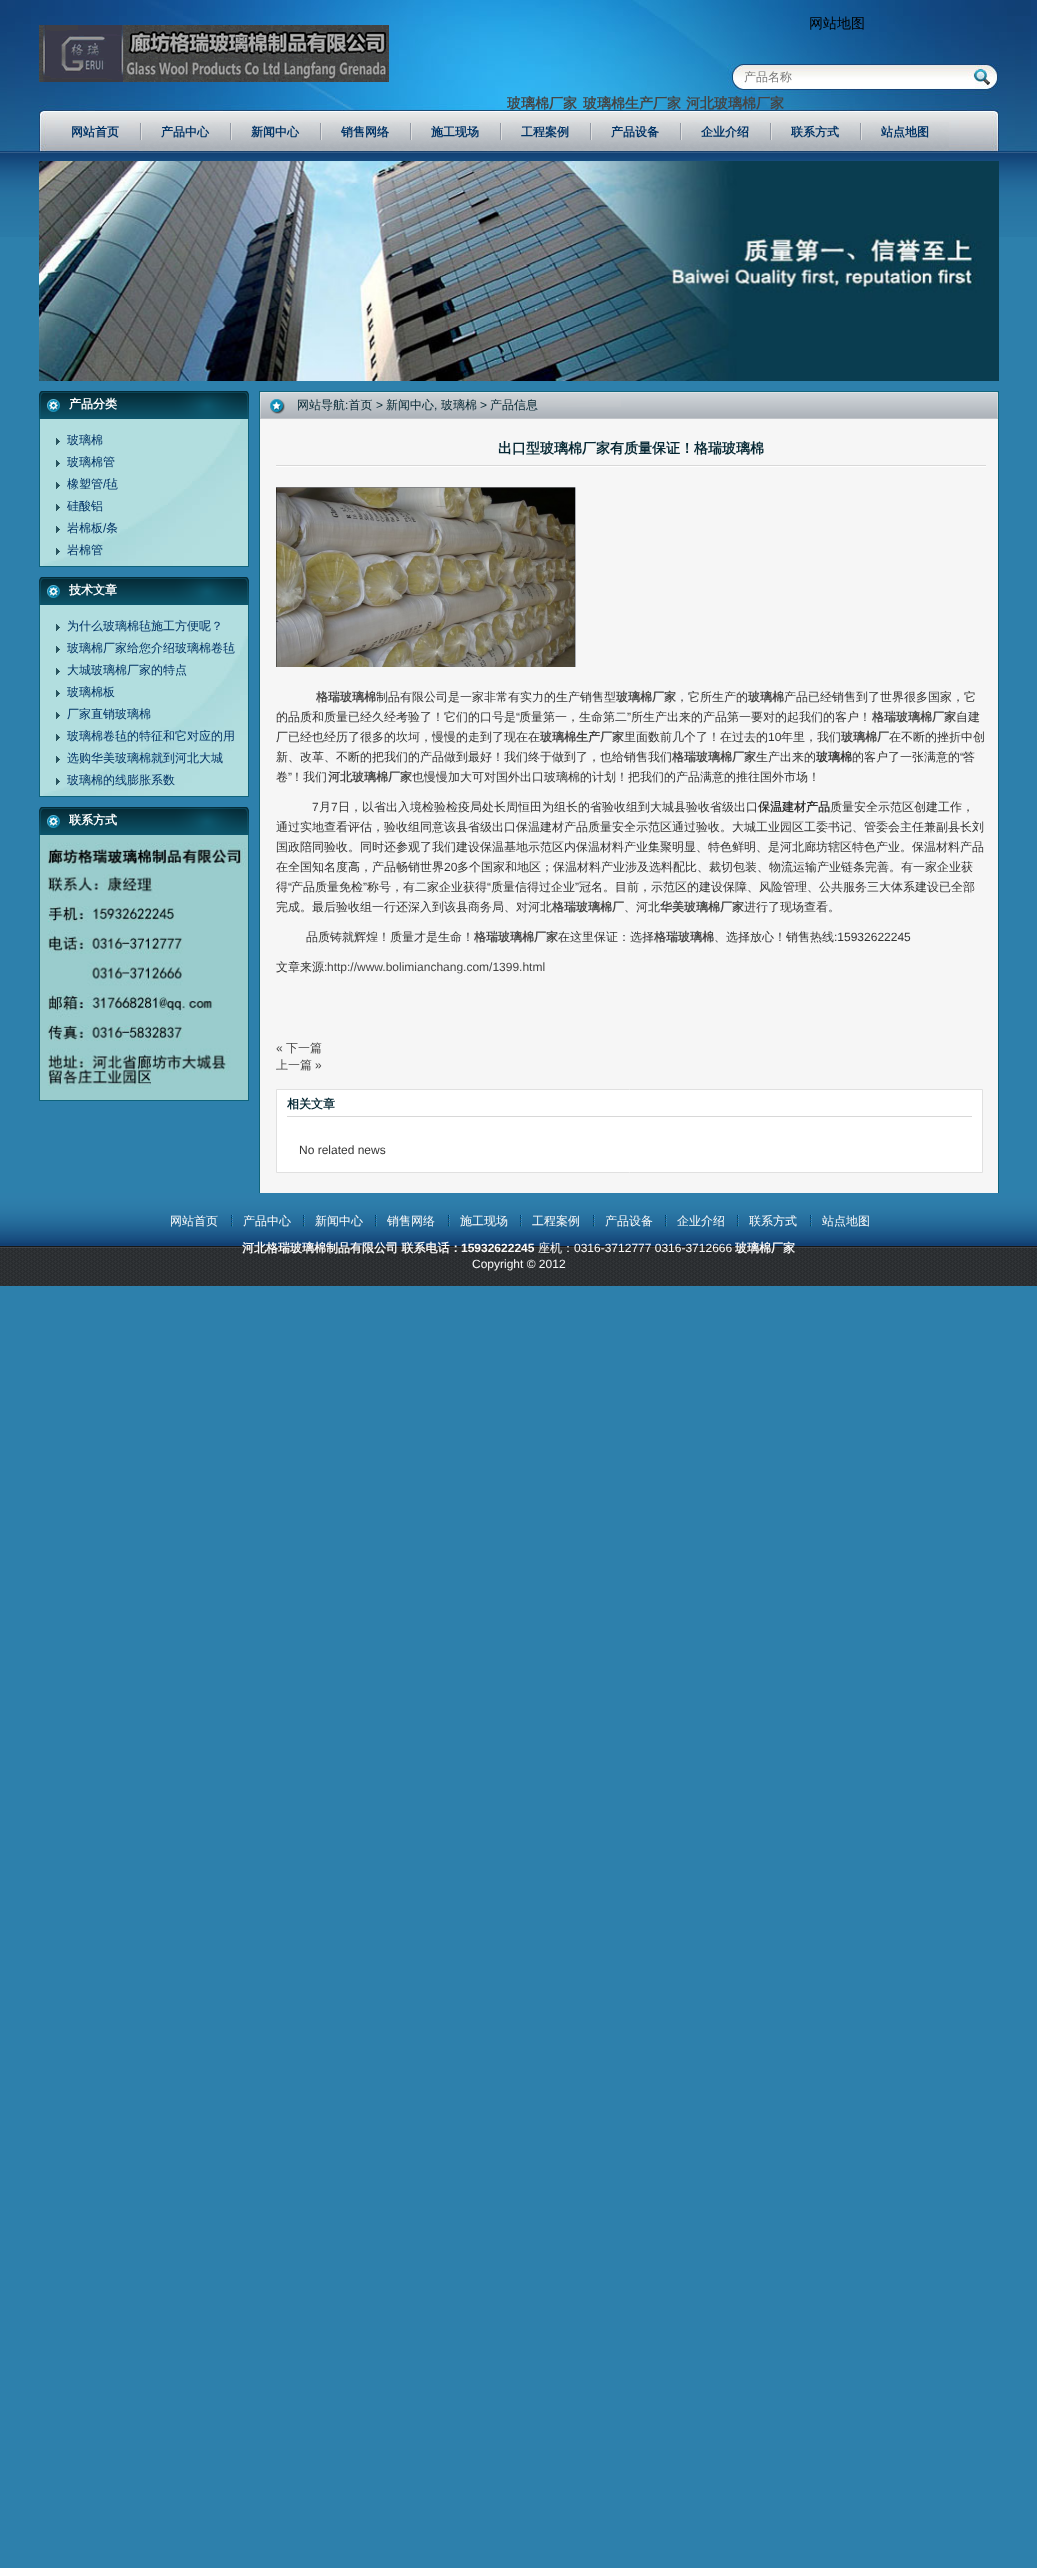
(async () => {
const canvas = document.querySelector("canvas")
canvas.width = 1037
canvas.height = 2568
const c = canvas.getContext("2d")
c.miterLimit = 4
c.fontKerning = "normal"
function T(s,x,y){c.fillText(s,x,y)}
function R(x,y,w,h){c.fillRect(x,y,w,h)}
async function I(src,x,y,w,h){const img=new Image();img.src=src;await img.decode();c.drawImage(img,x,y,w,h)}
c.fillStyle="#2d80ac"
R(0,0,1037,2568)
await I("1.png",0,0,1037,237)
await I("2.png",7,0,1024,152)
await I("3.png",39,25,350,57)
c.font="500 14px WenQuanYi Zen Hei"
c.fillStyle="#000"
T("网站地图",809,28)
c.font="500 12px WenQuanYi Zen Hei"
c.fillStyle="#787878"
T("产品名称",744,81)
c.font="bold 14px WenQuanYi Zen Hei"
c.fillStyle="#454545"
T("玻璃棉厂家",507,108)
T("玻璃棉生产厂家",583,108)
T("河北玻璃棉厂家",686,108)
c.font="bold 12px WenQuanYi Zen Hei"
c.fillStyle="#036"
T("网站首页",71,136)
await I("4.png",139,122,90,29)
T("产品中心",161,136)
await I("4.png",229,122,90,29)
T("新闻中心",251,136)
await I("4.png",319,122,90,29)
T("销售网络",341,136)
await I("4.png",409,122,90,29)
T("施工现场",431,136)
await I("4.png",499,122,90,29)
T("工程案例",521,136)
await I("4.png",589,122,90,29)
T("产品设备",611,136)
await I("4.png",679,122,90,29)
T("企业介绍",701,136)
await I("4.png",769,122,90,29)
T("联系方式",791,136)
await I("4.png",859,122,90,29)
T("站点地图",881,136)
await I("5.png",39,161,960,220)
await I("6.png",39,391,210,28)
c.fillStyle="#fff"
T("产品分类",69,408)
c.fillStyle="#b2dee0"
R(40,419,3,147)
await I("7.png",43,419,205,147)
c.fillStyle="#0f637b"
R(248,419,1,148)
R(39,566,210,1)
R(39,419,1,148)
await I("8.png",56,438,4,7)
c.font="500 12px WenQuanYi Zen Hei"
c.fillStyle="#036"
T("玻璃棉",67,444)
await I("8.png",56,460,4,7)
T("玻璃棉管",67,466)
await I("8.png",56,482,4,7)
T("橡塑管",67,488)
c.font="12px Liberation Sans"
T("/",103,488)
c.font="500 12px WenQuanYi Zen Hei"
T("毡",106,488)
await I("8.png",56,504,4,7)
T("硅酸铝",67,510)
await I("8.png",56,526,4,7)
T("岩棉板",67,532)
c.font="12px Liberation Sans"
T("/",103,532)
c.font="500 12px WenQuanYi Zen Hei"
T("条",106,532)
await I("9.png",56,548,4,7)
T("岩棉管",67,554)
await I("6.png",39,577,210,28)
c.font="bold 12px WenQuanYi Zen Hei"
c.fillStyle="#fff"
T("技术文章",69,594)
c.fillStyle="#b2dee0"
R(40,605,208,191)
await I("10.png",43,636,205,160)
c.fillStyle="#0f637b"
R(248,605,1,192)
R(39,796,210,1)
R(39,605,1,192)
await I("11.png",56,624,4,7)
c.font="500 12px WenQuanYi Zen Hei"
c.fillStyle="#036"
T("为什么玻璃棉毡施工方便呢？",67,630)
await I("8.png",56,646,4,7)
T("玻璃棉厂家给您介绍玻璃棉卷毡",67,652)
await I("8.png",56,668,4,7)
T("大城玻璃棉厂家的特点",67,674)
await I("8.png",56,690,4,7)
T("玻璃棉板",67,696)
await I("8.png",56,712,4,7)
T("厂家直销玻璃棉",67,718)
await I("8.png",56,734,4,7)
T("玻璃棉卷毡的特征和它对应的用",67,740)
await I("8.png",56,756,4,7)
T("选购华美玻璃棉就到河北大城",67,762)
await I("9.png",56,778,4,7)
T("玻璃棉的线膨胀系数",67,784)
await I("6.png",39,807,210,28)
c.font="bold 12px WenQuanYi Zen Hei"
c.fillStyle="#fff"
T("联系方式",69,824)
c.fillStyle="#0f637b"
R(248,835,1,266)
R(39,1100,210,1)
R(39,835,1,266)
await I("12.png",40,835,208,265)
await I("13.png",259,391,740,28)
c.font="500 12px WenQuanYi Zen Hei"
c.fillStyle="#052733"
T("网站导航 首页",297,409)
T("新闻中心",386,409)
T("玻璃棉",441,409)
T("产品信息",490,409)
c.font="12px Liberation Sans"
T(":",345,409)
T(">",376,409)
T(",",434,409)
T(">",480,409)
c.fillStyle="#f6f6f6"
R(260,419,738,774)
c.fillStyle="#10647b"
R(998,419,1,774)
R(259,419,1,774)
await I("14.png",276,465,710,2)
c.font="bold 14px WenQuanYi Zen Hei"
c.fillStyle="#052733"
T("出口型玻璃棉厂家有质量保证！格瑞玻璃棉",498,453)
await I("15.png",276,487,300,180)
c.font="bold 12px WenQuanYi Zen Hei"
c.fillStyle="#454545"
T("格瑞玻璃棉",316,701)
c.font="500 12px WenQuanYi Zen Hei"
c.fillStyle="#333"
T("制品有限公司是一家非常有实力的生产销售型",376,701)
c.font="bold 12px WenQuanYi Zen Hei"
c.fillStyle="#454545"
T("玻璃棉厂家",616,701)
c.font="500 12px WenQuanYi Zen Hei"
c.fillStyle="#333"
T("，它所生产的",676,701)
c.font="bold 12px WenQuanYi Zen Hei"
c.fillStyle="#454545"
T("玻璃棉",748,701)
c.font="500 12px WenQuanYi Zen Hei"
c.fillStyle="#333"
T("产品已经销售到了世界很多国家，它",784,701)
T("的品质和质量已经久经考验了！它们的口号是",276,721)
c.font="12px Liberation Sans"
T("“",516,721)
c.font="500 12px WenQuanYi Zen Hei"
T("质量第一，生命第二",519,721)
c.font="12px Liberation Sans"
T("”",627,721)
c.font="500 12px WenQuanYi Zen Hei"
T("所生产出来的产品第一要对的起我们的客户！",631,721)
c.font="bold 12px WenQuanYi Zen Hei"
c.fillStyle="#454545"
T("格瑞玻璃棉厂家",872,721)
c.font="500 12px WenQuanYi Zen Hei"
c.fillStyle="#333"
T("自建",956,721)
T("厂已经也经历了很多的坎坷，慢慢的走到了现在在",276,741)
c.font="bold 12px WenQuanYi Zen Hei"
c.fillStyle="#454545"
T("玻璃棉生产厂家",540,741)
c.font="500 12px WenQuanYi Zen Hei"
c.fillStyle="#333"
T("里面数前几个了！在过去的",624,741)
c.font="12px Liberation Sans"
T("10",768,741)
c.font="500 12px WenQuanYi Zen Hei"
T("年里，我们",781,741)
c.font="bold 12px WenQuanYi Zen Hei"
c.fillStyle="#454545"
T("玻璃棉厂",841,741)
c.font="500 12px WenQuanYi Zen Hei"
c.fillStyle="#333"
T("在不断的挫折中创",889,741)
T("新、改革、不断的把我们的产品做到最好！我们终于做到了，也给销售我们",276,761)
c.font="bold 12px WenQuanYi Zen Hei"
c.fillStyle="#454545"
T("格瑞玻璃棉厂家",672,761)
c.font="500 12px WenQuanYi Zen Hei"
c.fillStyle="#333"
T("生产出来的",756,761)
c.font="bold 12px WenQuanYi Zen Hei"
T("玻璃棉",816,761)
c.font="500 12px WenQuanYi Zen Hei"
T("的客户了一张满意的",852,761)
c.font="12px Liberation Sans"
T("“",960,761)
c.font="500 12px WenQuanYi Zen Hei"
T("答",963,761)
T("卷",276,781)
c.font="12px Liberation Sans"
T("”",288,781)
c.font="500 12px WenQuanYi Zen Hei"
T("！我们",291,781)
c.font="bold 12px WenQuanYi Zen Hei"
c.fillStyle="#454545"
T("河北玻璃棉厂家",328,781)
c.font="500 12px WenQuanYi Zen Hei"
c.fillStyle="#333"
T("也慢慢加大可对国外出口玻璃棉的计划！把我们的产品满意的推往国外市场！",412,781)
c.font="12px Liberation Sans"
T("7",312,811)
c.font="500 12px WenQuanYi Zen Hei"
T("月",319,811)
c.font="12px Liberation Sans"
T("7",331,811)
c.font="500 12px WenQuanYi Zen Hei"
T("日，以省出入境检验检疫局处长周恒田为组长的省验收组到大城县验收省级出口",338,811)
c.font="bold 12px WenQuanYi Zen Hei"
T("保温建材产品",758,811)
c.font="500 12px WenQuanYi Zen Hei"
T("质量安全示范区创建工作，",830,811)
T("通过实地查看评估，验收组同意该县省级出口保温建材产品质量安全示范区通过验收。大城工业园区工委书记、管委会主任兼副县长刘",276,831)
T("国政陪同验收。同时还参观了我们建设保温基地示范区内保温材料产业集聚明显、特色鲜明、是河北廊坊辖区特色产业。保温材料产品",276,851)
T("在全国知名度高，产品畅销世界",276,871)
c.font="12px Liberation Sans"
T("20",444,871)
c.font="500 12px WenQuanYi Zen Hei"
T("多个国家和地区；保温材料产业涉及选料配比、裁切包装、物流运输产业链条完善。有一家企业获",457,871)
T("得",276,891)
c.font="12px Liberation Sans"
T("“",288,891)
c.font="500 12px WenQuanYi Zen Hei"
T("产品质量免检",291,891)
c.font="12px Liberation Sans"
T("”",363,891)
c.font="500 12px WenQuanYi Zen Hei"
T("称号，有二家企业获得",367,891)
c.font="12px Liberation Sans"
T("“",487,891)
c.font="500 12px WenQuanYi Zen Hei"
T("质量信得过企业",491,891)
c.font="12px Liberation Sans"
T("”",575,891)
c.font="500 12px WenQuanYi Zen Hei"
T("冠名。目前，示范区的建设保障、风险管理、公共服务三大体系建设已全部",579,891)
T("完成。最后验收组一行还深入到该县商务局、对河北",276,911)
c.font="bold 12px WenQuanYi Zen Hei"
c.fillStyle="#454545"
T("格瑞玻璃棉厂",552,911)
c.font="500 12px WenQuanYi Zen Hei"
c.fillStyle="#333"
T("、河北",624,911)
c.font="bold 12px WenQuanYi Zen Hei"
c.fillStyle="#454545"
T("华美玻璃棉厂家",660,911)
c.font="500 12px WenQuanYi Zen Hei"
c.fillStyle="#333"
T("进行了现场查看。",744,911)
T("品质铸就辉煌！质量才是生命！",306,941)
c.font="bold 12px WenQuanYi Zen Hei"
c.fillStyle="#454545"
T("格瑞玻璃棉厂家",474,941)
c.font="500 12px WenQuanYi Zen Hei"
c.fillStyle="#333"
T("在这里保证：选择",558,941)
c.font="bold 12px WenQuanYi Zen Hei"
c.fillStyle="#454545"
T("格瑞玻璃棉",654,941)
c.font="500 12px WenQuanYi Zen Hei"
c.fillStyle="#333"
T("、选择放心！销售热线",714,941)
c.font="12px Liberation Sans"
T(":15932622245",834,941)
c.font="500 12px WenQuanYi Zen Hei"
T("文章来源",276,971)
c.font="12px Liberation Sans"
T(":",324,971)
c.fillStyle="#454545"
T("http://www.bolimianchang.com/1399.html",327,971)
T("«",276,1052)
c.font="500 12px WenQuanYi Zen Hei"
T("下一篇",286,1052)
T("上一篇",276,1069)
c.font="12px Liberation Sans"
T("»",315,1069)
c.fillStyle="#fff"
c.beginPath()
c.rect(276.5,1089.5,706,83)
c.fill()
c.strokeStyle="#e0e0e0"
c.stroke()
c.fillStyle="#d8d8d8"
R(287,1116,685,1)
c.font="bold 12px WenQuanYi Zen Hei"
c.fillStyle="#052733"
T("相关文章",287,1108)
c.font="12px Liberation Sans"
c.fillStyle="#333"
T("No related news",299,1154)
await I("16.png",0,1193,1037,93)
c.font="500 12px WenQuanYi Zen Hei"
c.fillStyle="#f9f9f9"
T("网站首页",170,1225)
await I("17.png",231,1215,2,12)
T("产品中心",243,1225)
await I("17.png",303,1215,2,12)
T("新闻中心",315,1225)
await I("17.png",375,1215,2,12)
T("销售网络",387,1225)
await I("17.png",448,1215,2,12)
T("施工现场",460,1225)
await I("17.png",520,1215,2,12)
T("工程案例",532,1225)
await I("17.png",593,1215,2,12)
T("产品设备",605,1225)
await I("17.png",665,1215,2,12)
T("企业介绍",677,1225)
await I("17.png",737,1215,2,12)
T("联系方式",749,1225)
await I("17.png",810,1215,2,12)
T("站点地图",822,1225)
c.font="bold 12px WenQuanYi Zen Hei"
T("河北格瑞玻璃棉制品有限公司 联系电话：",242,1252)
c.font="bold 12px Liberation Sans"
T("15932622245",461,1252)
c.font="500 12px WenQuanYi Zen Hei"
T("座机：",538,1252)
c.font="12px Liberation Sans"
T("0316-3712777 0316-3712666",574,1252)
c.font="bold 12px WenQuanYi Zen Hei"
T("玻璃棉厂家",735,1252)
c.font="12px Liberation Sans"
T("Copyright © 2012",472,1268)
})()
